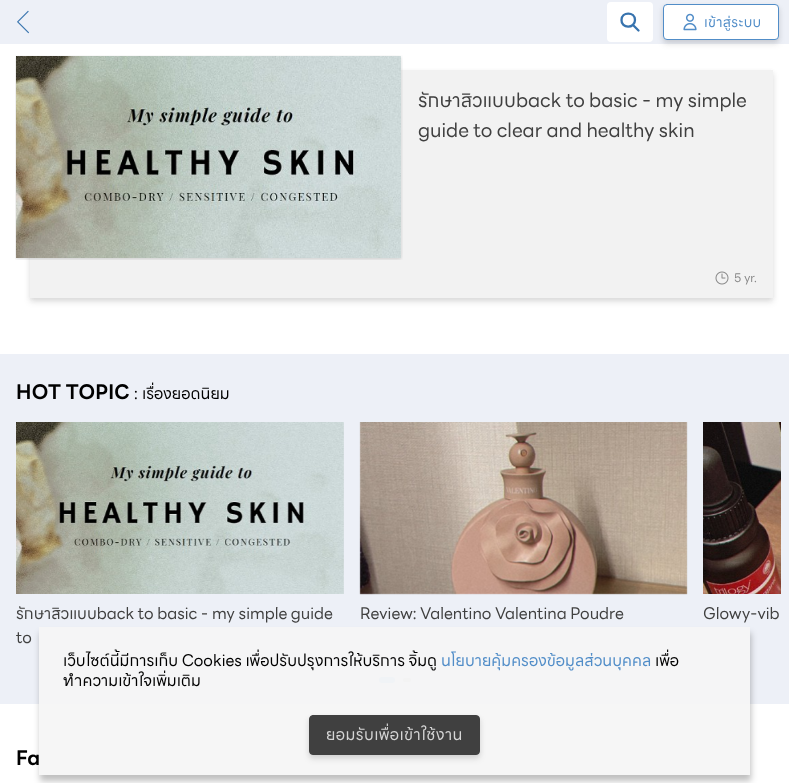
(async () => {
const canvas = document.querySelector("canvas")
canvas.width = 789
canvas.height = 783
const c = canvas.getContext("2d")
c.miterLimit = 4
c.fontKerning = "normal"
function T(s,x,y){c.fillText(s,x,y)}
function R(x,y,w,h){c.fillRect(x,y,w,h)}
function Q(x,y,w,h,r){c.beginPath();c.roundRect(x,y,w,h,r);c.fill()}
async function I(src,x,y,w,h){const img=new Image();img.src=src;await img.decode();c.drawImage(img,x,y,w,h)}
let path
c.fillStyle="#fff"
R(0,0,789,783)
c.fillStyle="#edf0f7"
R(0,0,789,44)
await I("1.png",17,10,12,24)
c.fillStyle="#fff"
Q(607,2,46,40,4)
path = new Path2D("M638.5 30.5l-5.5-5.5m2-5c0 9-14 8.5-13.5 0c0-8.5 13.5-8.5 13.5 0z")
c.strokeStyle="#3773ae"
c.lineWidth=2.3
c.lineCap="round"
c.lineJoin="round"
c.stroke(path)
c.fillStyle="#0000000f"
c.filter="blur(2px)"
c.beginPath()
c.roundRect(663,6,116,36,4)
c.fill()
c.filter="none"
c.fillStyle="#0000001a"
c.filter="blur(3px)"
c.beginPath()
c.roundRect(663,8,116,36,4)
c.fill()
c.filter="none"
c.fillStyle="#fff"
c.beginPath()
c.roundRect(663.5,4.5,115,35,3.5)
c.fill()
c.strokeStyle="#518dc8"
c.lineWidth=1
c.lineJoin="miter"
c.stroke()
await I("2.png",683,13,14,18)
c.letterSpacing="0.3px"
c.font="14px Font"
c.fillStyle="#518dc8"
T("เข้าสู่ระบบ",704,27)
c.fillStyle="#0000000f"
c.filter="blur(2px)"
c.beginPath()
c.rect(30,72,743,228)
c.fill()
c.filter="none"
c.fillStyle="#0000001a"
c.filter="blur(3px)"
c.beginPath()
c.rect(30,74,743,228)
c.fill()
c.filter="none"
c.fillStyle="#f2f2f2"
R(30,70,743,228)
await I("3.png",15,55,388,205)
c.save()
c.beginPath()
c.rect(418,86,338,59)
c.clip()
c.letterSpacing="0px"
c.font="19.4px Font"
c.fillStyle="#404040"
T("รักษาสิวแบบback to basic - my simple",418,107)
c.restore()
c.letterSpacing="0px"
c.font="19.4px Font"
c.fillStyle="#404040"
T("guide to clear and healthy skin",418,137)
await I("4.png",715,271,14,14)
c.font="12px Font"
c.fillStyle="#888"
T("5 yr.",734,282)
c.fillStyle="#edf0f7"
R(0,354,789,350)
c.font="bold 20px Font"
c.fillStyle="#000"
T("HOT TOPIC",16,399)
c.font="16px Font"
T(":",134,399)
T("เรื่องยอดนิยม",142,399)
await I("5.png",16,422,328,172)
c.save()
c.beginPath()
c.rect(16,602,328,48)
c.clip()
c.fillStyle="#404040"
T("รักษาสิวแบบback to basic - my simple guide",16,619)
c.restore()
c.fillStyle="#404040"
T("to",16,643)
await I("6.png",359,422,329,173)
T("Review: Valentino Valentina Poudre",360,619)
await I("7.png",703,422,78,172)
T("Glowy-vib",703,619)
c.fillStyle="#c0dbf8"
Q(379,677,16,6,3)
c.fillStyle="#dbdbdc"
Q(403,678,8,4,2)
c.font="bold 20px Font"
c.fillStyle="#000"
T("Fa",16,765)
c.save()
path = new Path2D("M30 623h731v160h-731zm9 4h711v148h-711z")
c.clip(path,"evenodd")
c.fillStyle="#00000040"
c.filter="blur(3px)"
c.beginPath()
c.rect(40,633,711,148)
c.fill()
c.filter="none"
c.restore()
c.fillStyle="#f5f5f5e6"
R(39,627,711,148)
c.font="16px Font"
c.fillStyle="#000"
T("เว็บไซต์นี้มีการเก็บ Cookies เพื่อปรับปรุงการให้บริการ จิ้มดู",63,666)
c.fillStyle="#518dc8"
T("นโยบายคุ้มครองข้อมูลส่วนบุคคล",441,666)
c.fillStyle="#000"
T("เพื่อ",655,666)
T("ทำความเข้าใจเพิ่มเติม",63,686)
c.fillStyle="#0000000f"
c.filter="blur(2px)"
c.beginPath()
c.roundRect(309,717,171,40,4)
c.fill()
c.filter="none"
c.fillStyle="#0000001a"
c.filter="blur(3px)"
c.beginPath()
c.roundRect(309,719,171,40,4)
c.fill()
c.filter="none"
c.fillStyle="#404040"
c.beginPath()
c.roundRect(309.5,715.5,170,39,3.5)
c.fill()
c.strokeStyle="#404040"
c.stroke()
c.letterSpacing="0.4px"
c.fillStyle="#d5d5d5"
T("ยอมรับเพื่อเข้าใช้งาน",326,740)
})()
